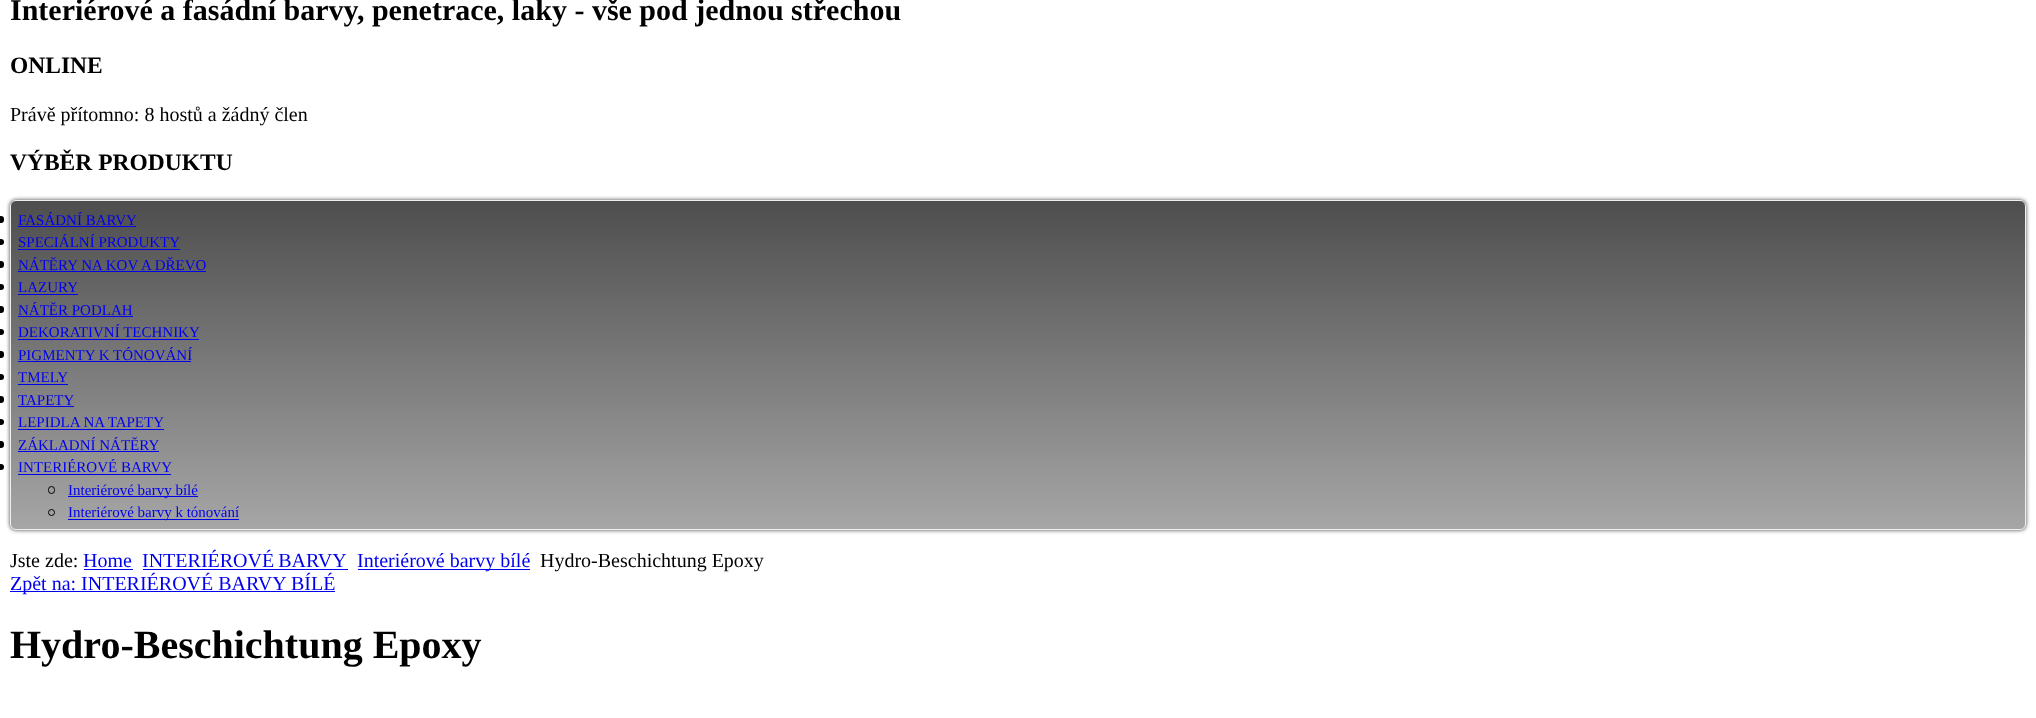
(async () => {
const canvas = document.querySelector("canvas")
canvas.width = 2036
canvas.height = 718
const c = canvas.getContext("2d")
c.miterLimit = 4
c.fontKerning = "normal"
function T(s,x,y){c.fillText(s,x,y)}
function R(x,y,w,h){c.fillRect(x,y,w,h)}
function Q(x,y,w,h,r){c.beginPath();c.roundRect(x,y,w,h,r);c.fill()}
let gradient
c.fillStyle="#fff"
R(0,0,2036,718)
c.font="bold 30px Liberation Serif"
c.fillStyle="#000"
T("Interiérové a fasádní barvy, penetrace, laky - vše pod jednou střechou",10,20)
c.font="bold 23.5px Liberation Serif"
T("ONLINE",10,73)
c.font="20px Liberation Serif"
T("Právě přítomno: 8 hostů a žádný člen",10,121)
c.font="bold 23.5px Liberation Serif"
T("VÝBĚR PRODUKTU",10,170)
c.fillStyle="#444"
c.filter="blur(2px)"
c.beginPath()
c.roundRect(10,200,2016,330,6)
c.fill()
c.filter="none"
c.save()
c.beginPath()
c.roundRect(10,200,2016,330,6)
c.clip()
gradient = c.createLinearGradient(1018,201,1018,529)
gradient.addColorStop(0,"#4f4e4e")
gradient.addColorStop(1,"#a7a6a6")
c.fillStyle = gradient
R(10,201,2016,328)
c.restore()
c.beginPath()
c.roundRect(10.5,200.5,2015,329,5.5)
c.strokeStyle="#efefef"
c.stroke()
c.fillStyle="#000"
Q(-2,216,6,7,3)
c.font="15px Liberation Serif"
c.fillStyle="#00e"
T("FASÁDNÍ BARVY",18,225)
R(18,226,118,1)
c.fillStyle="#000"
c.beginPath()
c.arc(1,242,3,0,7)
c.fill()
c.fillStyle="#00e"
T("SPECIÁLNÍ PRODUKTY",18,247)
R(18,249,162,1)
c.fillStyle="#000"
Q(-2,261,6,7,3)
c.fillStyle="#00e"
T("NÁTĚRY NA KOV A DŘEVO",18,270)
R(18,271,188,1)
c.fillStyle="#000"
c.beginPath()
c.arc(1,287,3,0,7)
c.fill()
c.fillStyle="#00e"
T("LAZURY",18,292)
R(18,294,60,1)
c.fillStyle="#000"
Q(-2,306,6,7,3)
c.fillStyle="#00e"
T("NÁTĚR PODLAH",18,315)
R(18,316,115,1)
c.fillStyle="#000"
c.beginPath()
c.arc(1,332,3,0,7)
c.fill()
c.fillStyle="#00e"
T("DEKORATIVNÍ TECHNIKY",18,337)
R(18,339,181,1)
c.fillStyle="#000"
Q(-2,351,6,7,3)
c.fillStyle="#00e"
T("PIGMENTY K TÓNOVÁNÍ",18,360)
R(18,361,173,1)
c.fillStyle="#000"
c.beginPath()
c.arc(1,377,3,0,7)
c.fill()
c.fillStyle="#00e"
T("TMELY",18,382)
R(18,384,50,1)
c.fillStyle="#000"
Q(-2,396,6,7,3)
c.fillStyle="#00e"
T("TAPETY",18,405)
R(18,406,56,1)
c.fillStyle="#000"
c.beginPath()
c.arc(1,422,3,0,7)
c.fill()
c.fillStyle="#00e"
T("LEPIDLA NA TAPETY",18,427)
R(18,429,146,1)
c.fillStyle="#000"
Q(-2,441,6,7,3)
c.fillStyle="#00e"
T("ZÁKLADNÍ NÁTĚRY",18,450)
R(18,451,141,1)
c.fillStyle="#000"
c.beginPath()
c.arc(1,467,3,0,7)
c.fill()
c.fillStyle="#00e"
T("INTERIÉROVÉ BARVY",18,472)
R(18,474,153,1)
c.beginPath()
c.roundRect(48.5,486.5,6,7,3)
c.strokeStyle="#000"
c.stroke()
R(68,496,130,1)
T("Interiérové barvy bílé",68,495)
c.beginPath()
c.arc(51.5,512.5,3,0,7)
c.stroke()
R(68,519,171,1)
T("Interiérové barvy k tónování",68,517)
c.font="20px Liberation Serif"
c.fillStyle="#000"
T("Jste zde:",10,567)
c.fillStyle="#00e"
T("Home",83,567)
R(84,569,49,1)
c.wordSpacing="-1px"
T("INTERIÉROVÉ BARVY",142,567)
R(143,569,205,1)
R(358,569,172,1)
c.wordSpacing="0px"
T("Interiérové barvy bílé",357,567)
c.fillStyle="#000"
T("Hydro-Beschichtung Epoxy",540,567)
c.fillStyle="#00e"
R(10,591,325,1)
T("Zpět na: INTERIÉROVÉ BARVY BÍLÉ",10,590)
c.font="bold 40px Liberation Serif"
c.fillStyle="#000"
T("Hydro-Beschichtung Epoxy",10,658)
})()
